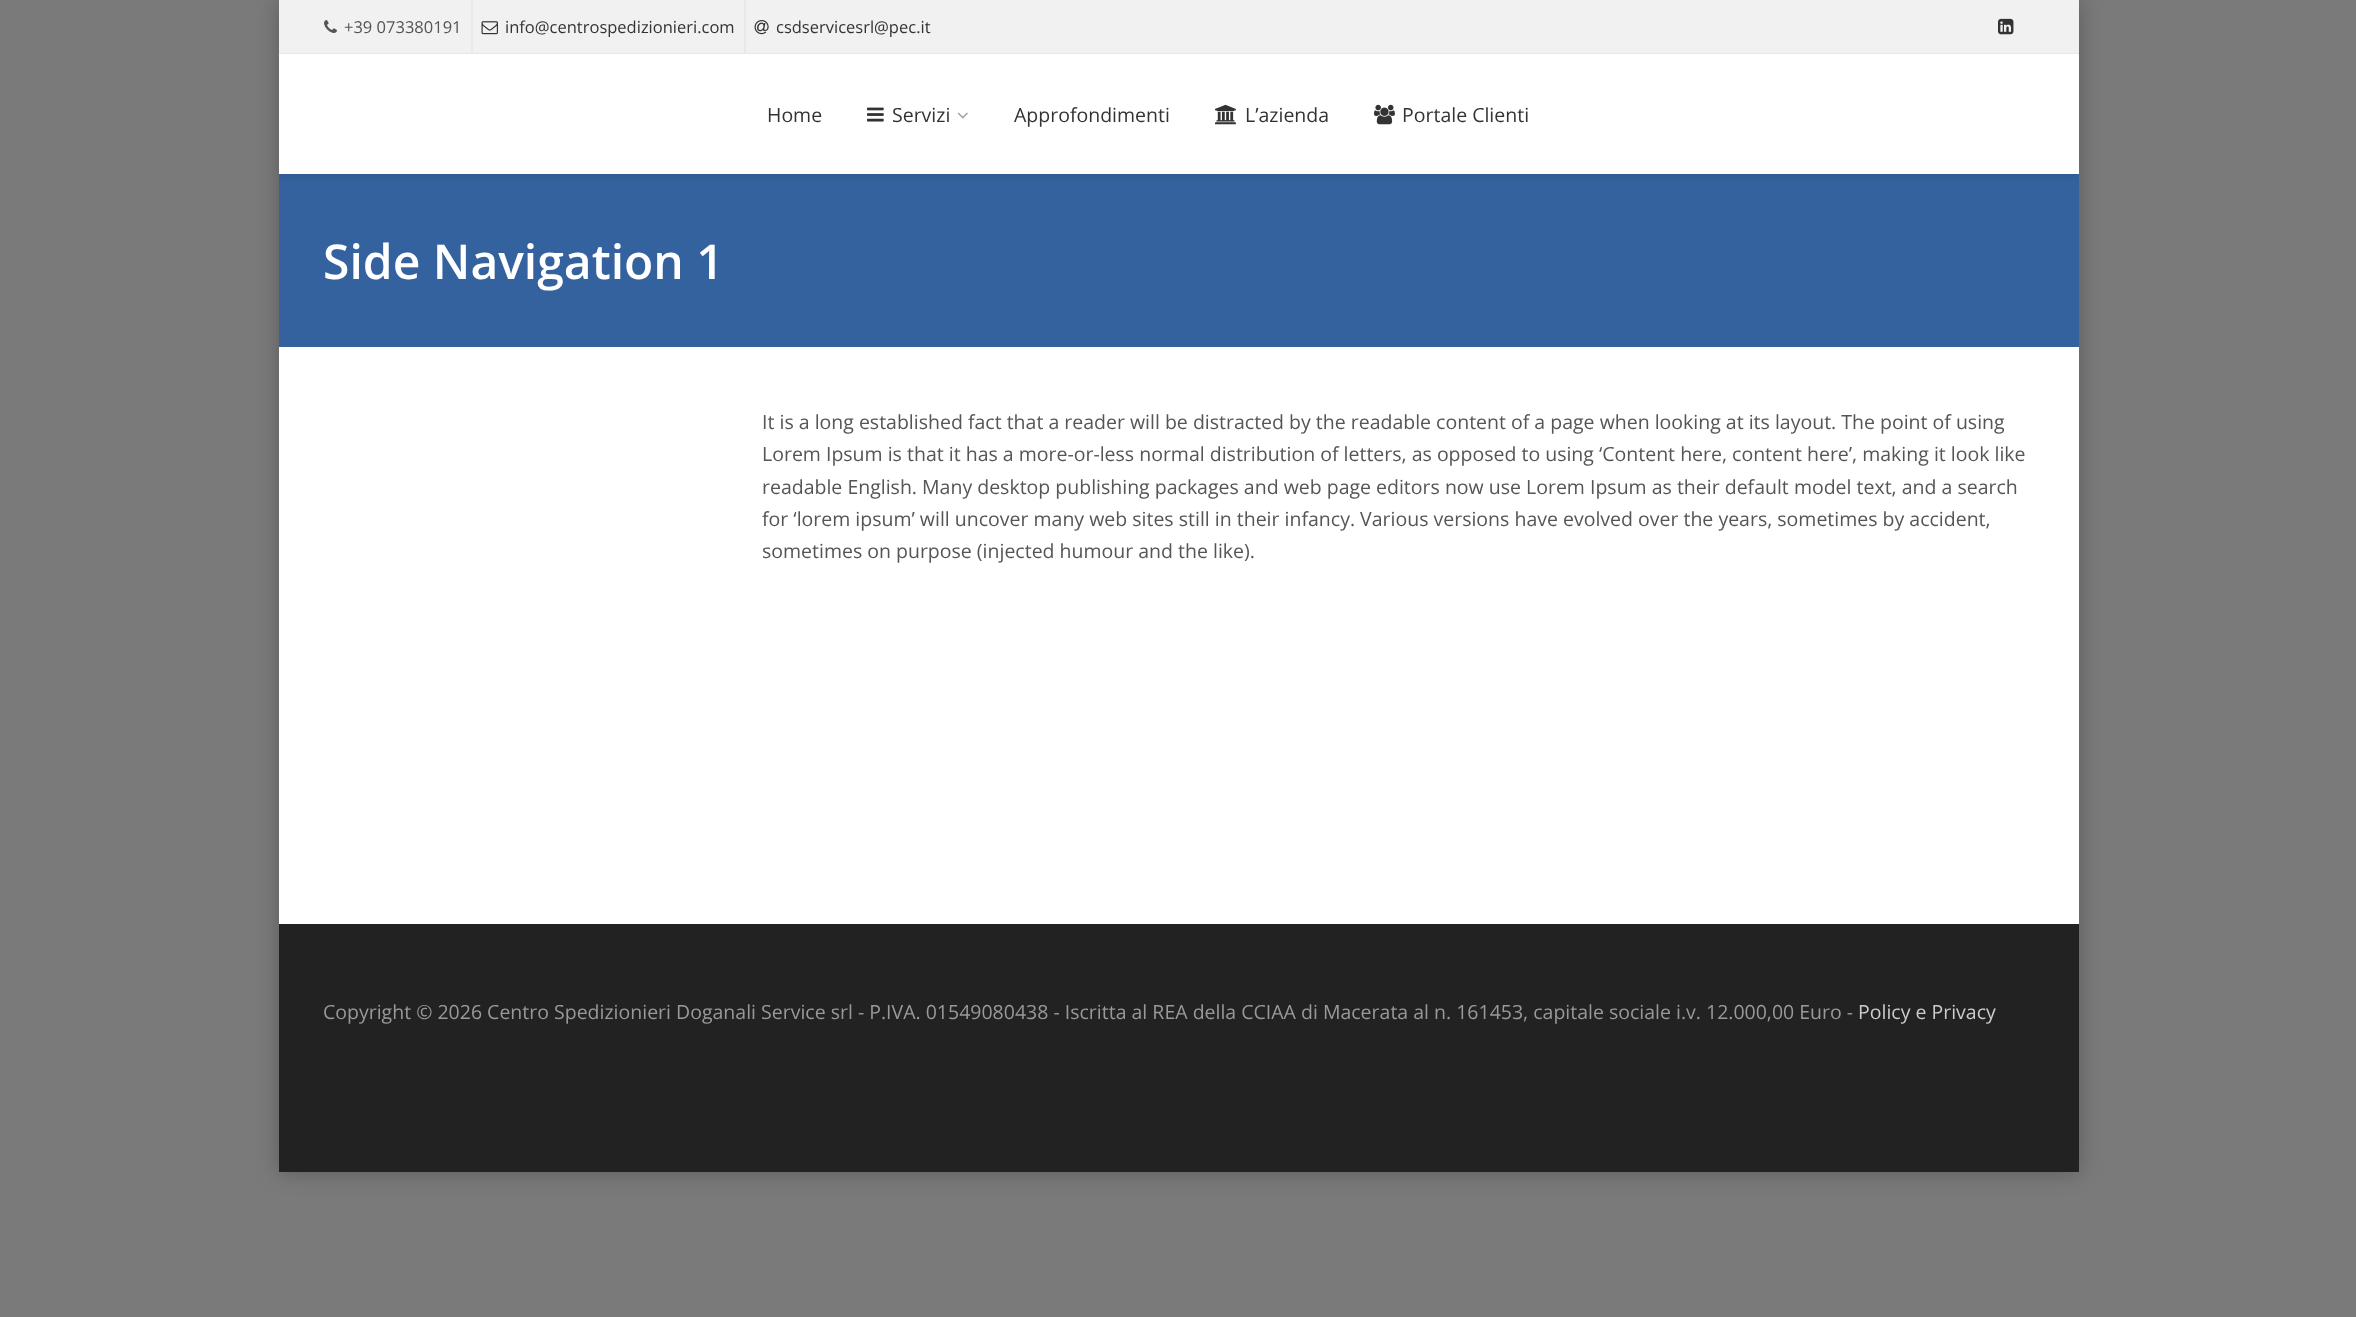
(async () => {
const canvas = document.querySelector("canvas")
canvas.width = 2356
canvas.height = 1317
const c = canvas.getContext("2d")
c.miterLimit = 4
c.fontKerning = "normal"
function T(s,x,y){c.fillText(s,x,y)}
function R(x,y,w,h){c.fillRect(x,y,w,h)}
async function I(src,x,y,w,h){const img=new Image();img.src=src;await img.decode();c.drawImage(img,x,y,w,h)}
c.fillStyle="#7a7a7a"
R(0,0,2356,1317)
c.fillStyle="#00000040"
c.filter="blur(11px)"
c.beginPath()
c.rect(279,0,1800,1172)
c.fill()
c.filter="none"
c.fillStyle="#f1f1f1"
R(279,0,1800,53)
c.fillStyle="#e8e8e8"
R(279,53,1800,1)
R(471,0,2,53)
await I("1.png",324,20,13,13)
c.font="16.5px Open Sans"
c.fillStyle="#555"
T("+39 073380191",344,33)
c.fillStyle="#e8e8e8"
R(744,0,2,53)
await I("2.png",481,21,17,14)
c.fillStyle="#333"
T("info@centrospedizionieri.com",505,33)
await I("3.png",754,20,15,15)
T("csdservicesrl@pec.it",776,33)
await I("4.png",1998,18,16,17)
c.fillStyle="#fff"
R(279,54,1800,120)
c.font="19.5px Open Sans"
c.fillStyle="#333"
T("Home",767,122)
await I("5.png",867,107,17,15)
T("Servizi",892,122)
await I("6.png",957,112,11,7)
T("Approfondimenti",1014,122)
await I("7.png",1215,104,21,21)
T("L’azienda",1245,122)
await I("8.png",1374,104,21,21)
T("Portale Clienti",1402,122)
c.fillStyle="#34629e"
R(279,174,1800,173)
c.save()
c.beginPath()
c.rect(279,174,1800,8)
c.clip()
c.fillStyle="#0000001a"
c.filter="blur(3px)"
c.beginPath()
c.roundRect(279,168,1800,8,4)
c.fill()
c.filter="none"
c.restore()
c.fillStyle="#fff"
R(279,347,1800,577)
c.font="600 48px Open Sans"
T("Side Navigation 1",323,279)
c.font="19.5px Open Sans"
c.fillStyle="#555"
T("It is a long established fact that a reader will be distracted by the readable content of a page when looking at its layout. The point of using",762,429)
T("Lorem Ipsum is that it has a more-or-less normal distribution of letters, as opposed to using ‘Content here, content here’, making it look like",762,461)
T("readable English. Many desktop publishing packages and web page editors now use Lorem Ipsum as their default model text, and a search",762,494)
T("for ‘lorem ipsum’ will uncover many web sites still in their infancy. Various versions have evolved over the years, sometimes by accident,",762,526)
T("sometimes on purpose (injected humour and the like).",762,558)
c.fillStyle="#222"
R(279,924,1800,248)
c.fillStyle="#999"
T("Copyright © 2026 Centro Spedizionieri Doganali Service srl - P.IVA. 01549080438 - Iscritta al REA della CCIAA di Macerata al n. 161453, capitale sociale i.v. 12.000,00 Euro -",323,1019)
c.fillStyle="#ccc"
T("Policy e Privacy",1858,1019)
})()
